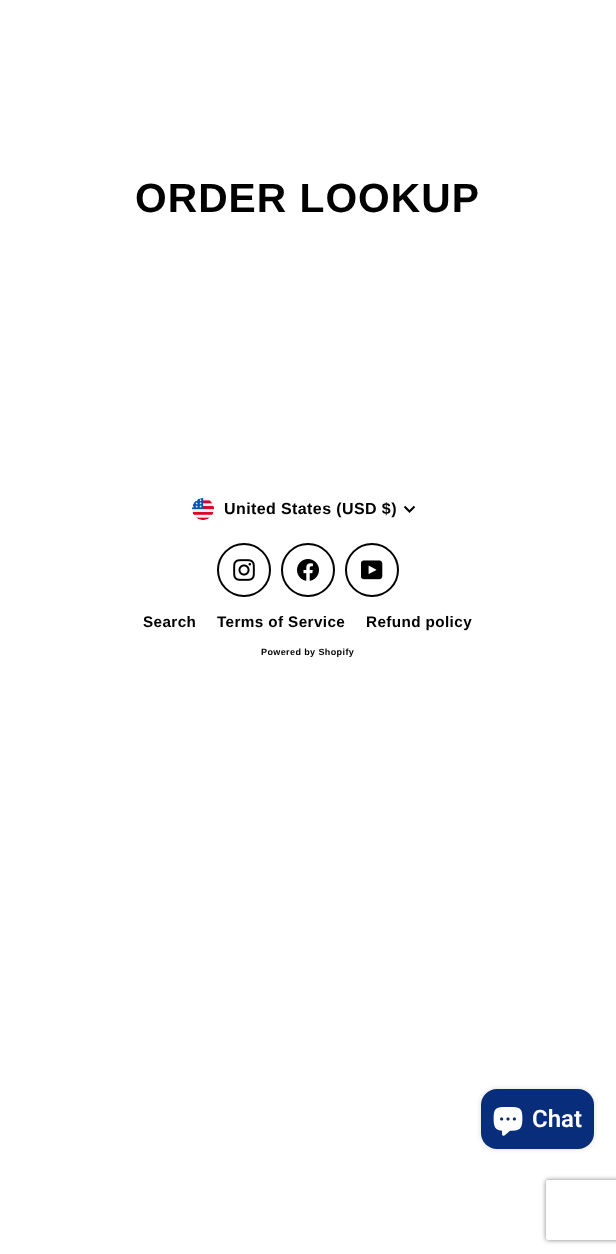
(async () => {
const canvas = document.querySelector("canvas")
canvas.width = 616
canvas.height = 1254
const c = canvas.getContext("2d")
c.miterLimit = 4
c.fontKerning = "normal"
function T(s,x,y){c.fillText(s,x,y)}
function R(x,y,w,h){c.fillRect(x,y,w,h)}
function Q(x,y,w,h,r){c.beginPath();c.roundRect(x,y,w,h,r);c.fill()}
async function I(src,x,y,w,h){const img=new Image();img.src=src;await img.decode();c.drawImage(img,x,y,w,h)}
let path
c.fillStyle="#fff"
R(0,0,616,1254)
c.letterSpacing="1px"
c.font="bold 40.75px Arimo"
c.fillStyle="#000"
T("ORDER LOOKUP",135,212)
await I("1.png",192,498,22,22)
c.letterSpacing="0.4px"
c.font="bold 16px Arimo"
T("United States (USD $)",224,514)
path = new Path2D("M404.5 506.5l5 5l5-5")
c.strokeStyle="#000"
c.lineWidth=2
c.stroke(path)
c.beginPath()
c.arc(244,570,26,0,7)
c.stroke()
await I("2.png",233,559,22,22)
c.beginPath()
c.arc(308,570,26,0,7)
c.stroke()
await I("3.png",297,559,22,22)
c.beginPath()
c.arc(372,570,26,0,7)
c.stroke()
await I("4.png",361,560,22,20)
c.font="bold 15.25px Arimo"
T("Search",143,627)
T("Terms of Service",217,627)
T("Refund policy",366,627)
c.font="bold 9px Arimo"
T("Powered by Shopify",261,655)
c.fillStyle="#00000026"
c.filter="blur(2.5px)"
c.beginPath()
c.roundRect(481,1089,113,60,16)
c.fill()
c.filter="none"
c.fillStyle="#082d7b"
Q(481,1089,113,60,16)
await I("5.png",493,1107,30,29)
c.letterSpacing="0px"
c.font="600 24px Roboto"
c.fillStyle="#fff"
T("Chat",532,1127)
c.save()
path = new Path2D("M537 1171h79v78h-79zm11 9h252c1 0 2 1 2 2v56c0 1-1 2-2 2h-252c-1 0-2-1-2-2v-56c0-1 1-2 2-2z")
c.clip(path,"evenodd")
c.fillStyle="#808080"
c.filter="blur(2.5px)"
c.beginPath()
c.roundRect(546,1180,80,60,2)
c.fill()
c.filter="none"
c.restore()
})()
